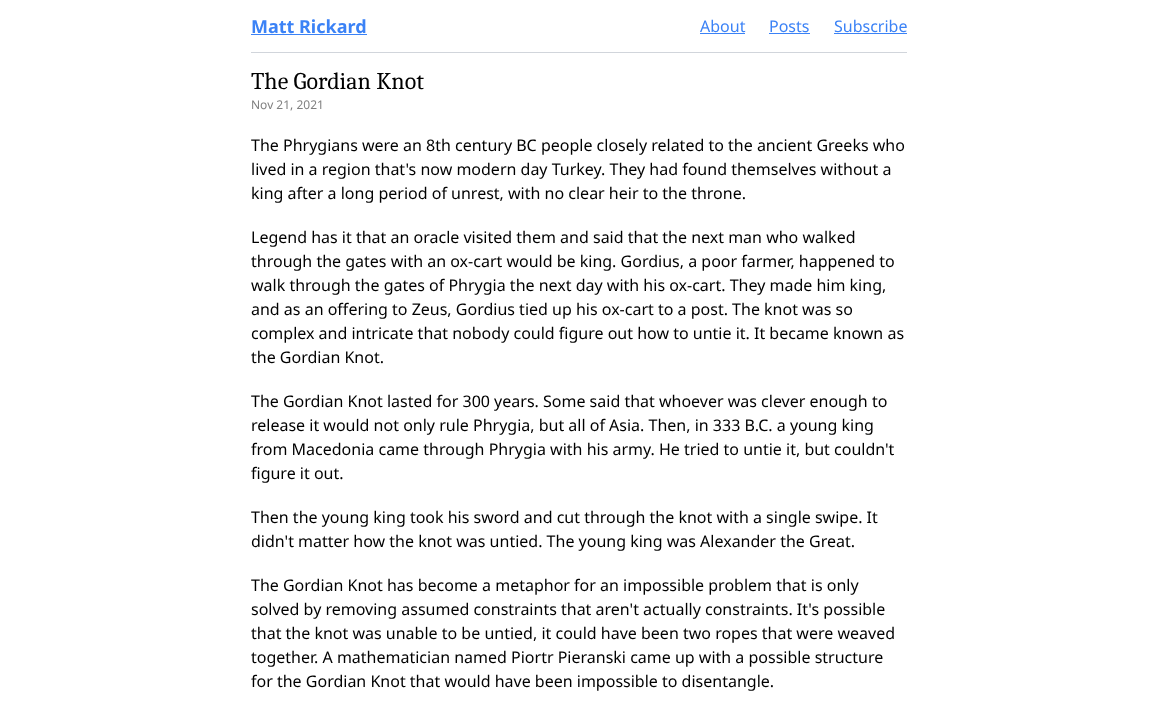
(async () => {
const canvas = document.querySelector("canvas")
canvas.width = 1158
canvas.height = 705
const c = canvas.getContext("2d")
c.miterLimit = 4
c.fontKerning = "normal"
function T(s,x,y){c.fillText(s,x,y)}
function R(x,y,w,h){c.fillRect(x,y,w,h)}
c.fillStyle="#fff"
R(0,0,1158,705)
c.fillStyle="#d1d5db"
R(251,52,656,1)
c.font="bold 18px Noto Sans"
c.fillStyle="#3b82f6"
T("Matt Rickard",251,33)
R(251,34,116,1)
c.font="16px Noto Sans"
T("About",700,32)
R(700,33,45,1)
T("Posts",769,32)
R(769,33,41,1)
T("Subscribe",834,32)
R(834,33,73,1)
c.font="24px Caladea"
c.fillStyle="#000"
T("The Gordian Knot",251,89)
c.font="12px Noto Sans"
c.fillStyle="#808080"
T("Nov 21, 2021",251,109)
c.font="16px Noto Sans"
c.fillStyle="#000"
T("The Phrygians were an 8th century BC people closely related to the ancient Greeks who",251,151)
T("lived in a region that's now modern day Turkey. They had found themselves without a",251,175)
T("king after a long period of unrest, with no clear heir to the throne.",251,199)
T("Legend has it that an oracle visited them and said that the next man who walked",251,243)
T("through the gates with an ox-cart would be king. Gordius, a poor farmer, happened to",251,267)
T("walk through the gates of Phrygia the next day with his ox-cart. They made him king,",251,291)
T("and as an offering to Zeus, Gordius tied up his ox-cart to a post. The knot was so",251,315)
T("complex and intricate that nobody could figure out how to untie it. It became known as",251,339)
T("the Gordian Knot.",251,363)
T("The Gordian Knot lasted for 300 years. Some said that whoever was clever enough to",251,407)
T("release it would not only rule Phrygia, but all of Asia. Then, in 333 B.C. a young king",251,431)
T("from Macedonia came through Phrygia with his army. He tried to untie it, but couldn't",251,455)
T("figure it out.",251,479)
T("Then the young king took his sword and cut through the knot with a single swipe. It",251,523)
T("didn't matter how the knot was untied. The young king was Alexander the Great.",251,547)
T("The Gordian Knot has become a metaphor for an impossible problem that is only",251,591)
T("solved by removing assumed constraints that aren't actually constraints. It's possible",251,615)
T("that the knot was unable to be untied, it could have been two ropes that were weaved",251,639)
T("together. A mathematician named Piortr Pieranski came up with a possible structure",251,663)
T("for the Gordian Knot that would have been impossible to disentangle.",251,687)
})()
